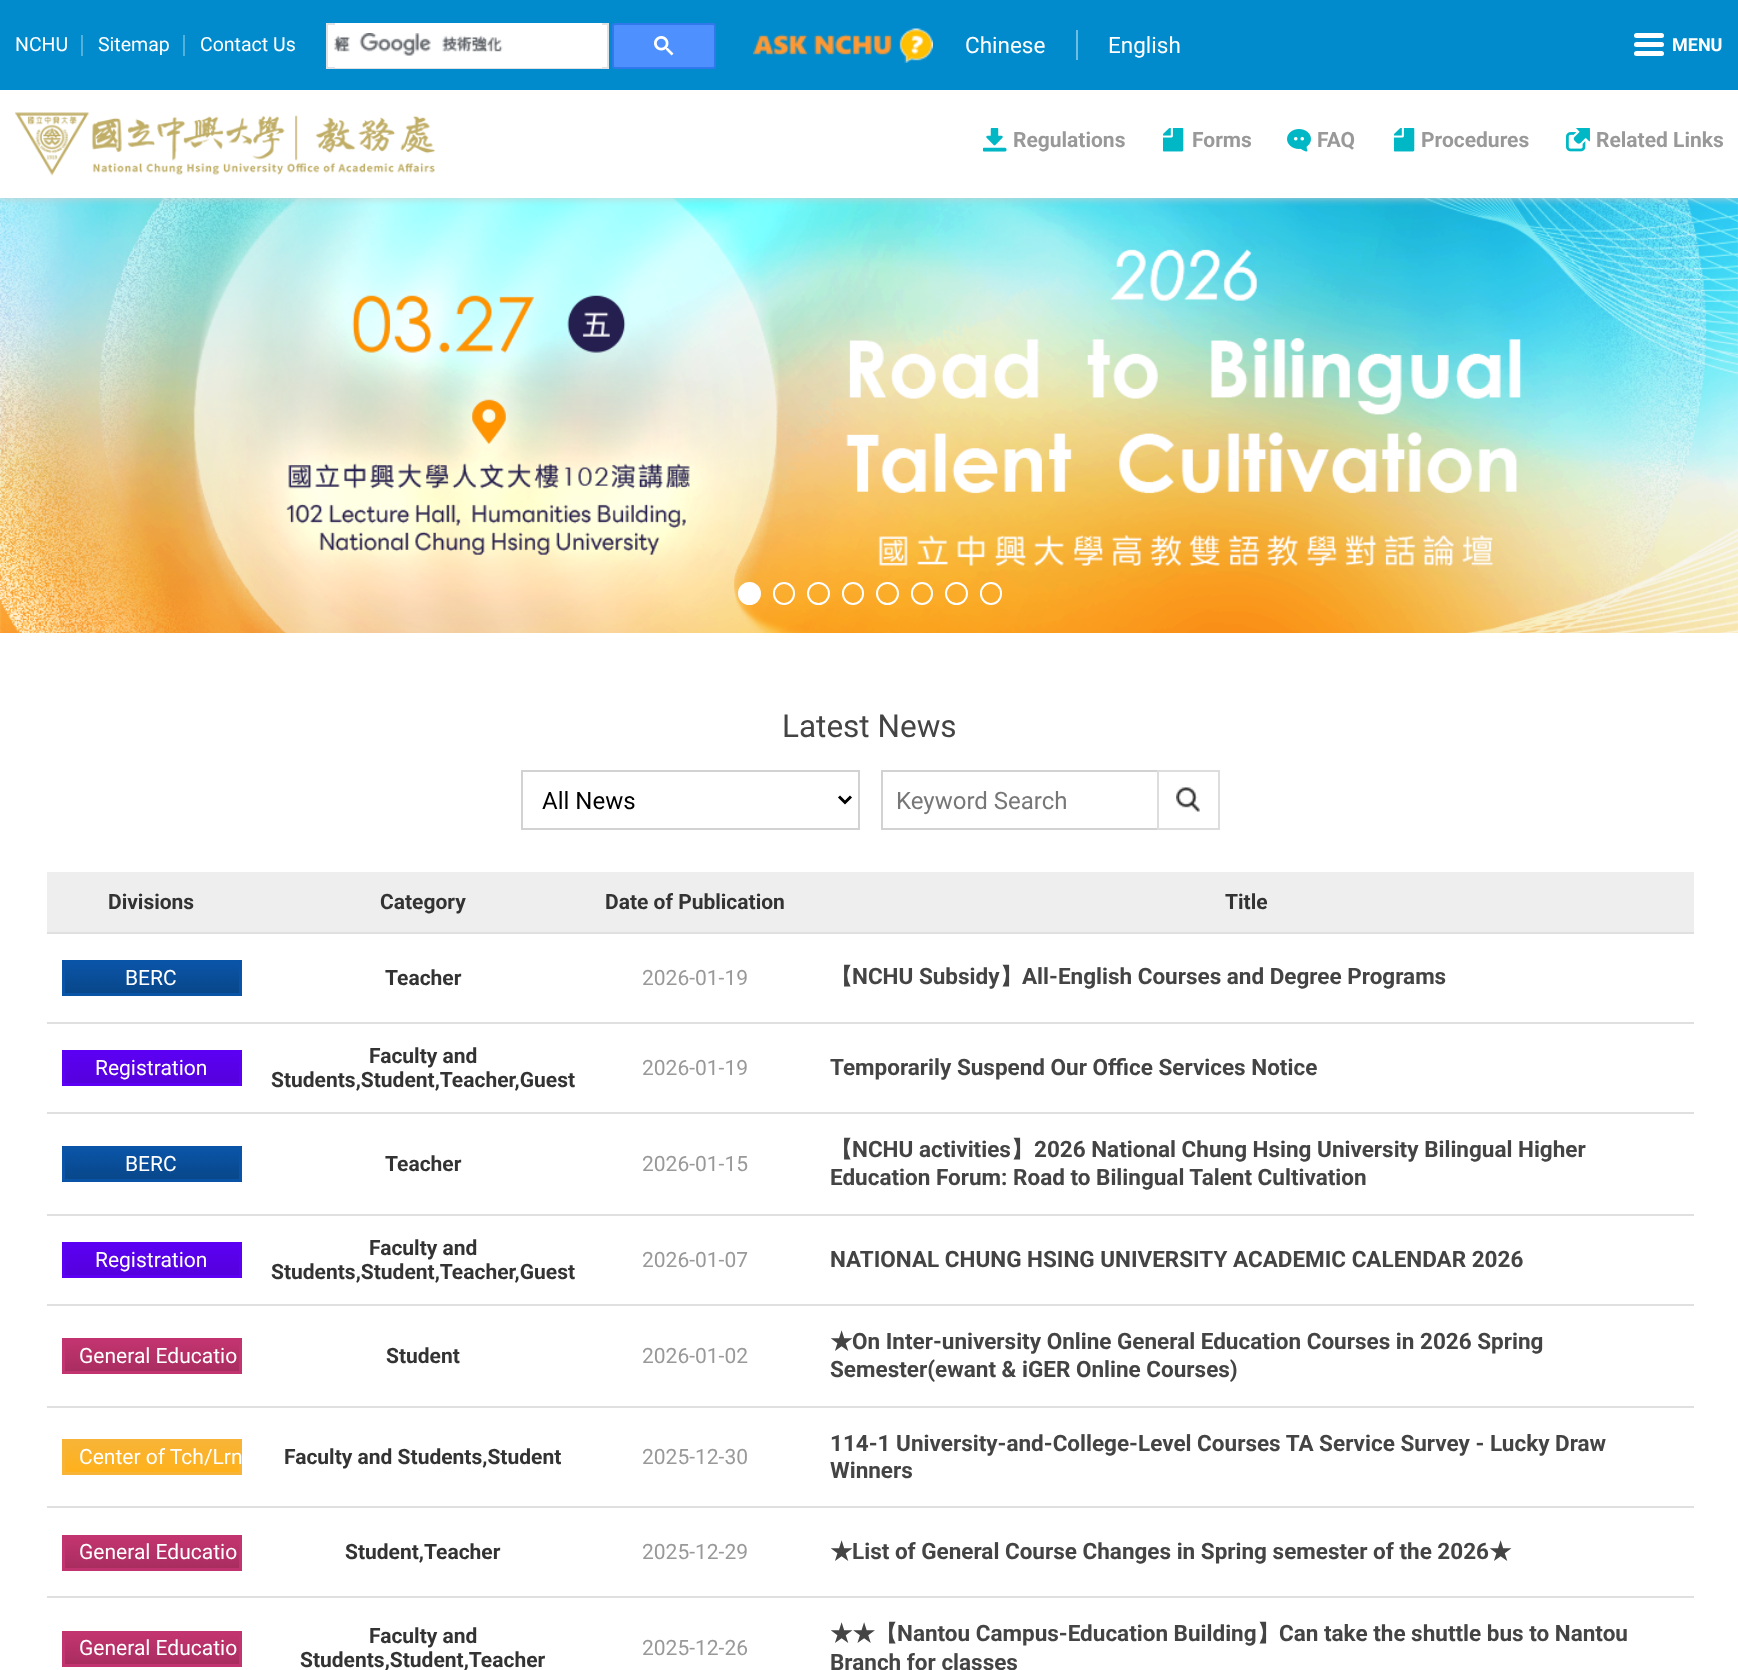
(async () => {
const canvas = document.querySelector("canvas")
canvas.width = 1738
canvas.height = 1670
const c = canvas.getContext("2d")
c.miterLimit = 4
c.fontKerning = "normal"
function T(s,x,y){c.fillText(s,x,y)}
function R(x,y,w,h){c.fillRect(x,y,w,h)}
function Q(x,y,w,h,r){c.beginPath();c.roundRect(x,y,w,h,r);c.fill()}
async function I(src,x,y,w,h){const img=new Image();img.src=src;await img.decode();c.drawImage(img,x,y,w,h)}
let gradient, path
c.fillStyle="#fff"
R(0,0,1738,1670)
await I("9.png",0,198,1738,435)
c.save()
c.beginPath()
c.rect(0,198,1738,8)
c.clip()
c.fillStyle="#ccc"
c.filter="blur(4px)"
c.beginPath()
c.rect(0,0,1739,198)
c.fill()
c.filter="none"
c.restore()
c.fillStyle="#018bcd"
R(0,0,1738,90)
c.font="19.5px Roboto"
c.fillStyle="#fff"
T("NCHU",15,51)
c.fillStyle="#52b0dd"
R(81,35,2,21)
c.fillStyle="#fff"
T("Sitemap",98,51)
c.fillStyle="#52b0dd"
R(183,35,2,21)
c.fillStyle="#fff"
T("Contact Us",200,51)
c.beginPath()
c.rect(327,24,281,44)
c.fill()
c.strokeStyle="#dfe1e5"
c.lineWidth=2
c.stroke()
R(335,23,267,45)
await I("1.png",334,33,169,23)
c.fillStyle="#4d90fe"
c.beginPath()
c.roundRect(613,24,102,44,2)
c.fill()
c.strokeStyle="#3079ed"
c.stroke()
await I("2.png",654,36,20,20)
await I("3.png",753,28,180,35)
c.font="22.5px Roboto"
c.fillStyle="#fff"
T("Chinese",965,53)
c.fillStyle="#6ebde3"
R(1076,30,2,30)
c.fillStyle="#fff"
T("English",1108,53)
Q(1634,33,30,5,2.5)
Q(1634,42,30,5,2.5)
Q(1634,51,30,5,2.5)
c.font="bold 18px Roboto"
T("MENU",1672,51)
await I("4.png",15,112,420,64)
await I("5.png",983,128,24,24)
c.font="bold 21px Roboto"
c.fillStyle="#999"
T("Regulations",1013,147)
await I("6.png",1163,128,21,24)
T("Forms",1192,147)
await I("7.png",1287,129,24,23)
T("FAQ",1317,147)
await I("6.png",1394,128,21,24)
T("Procedures",1421,147)
await I("8.png",1566,128,24,24)
T("Related Links",1596,147)
c.fillStyle="#fff"
c.beginPath()
c.arc(749.5,593.5,10.5,0,7)
c.fill()
c.strokeStyle="#fff"
c.stroke()
c.beginPath()
c.roundRect(774,583,20,21,10)
c.stroke()
c.beginPath()
c.arc(818.5,593.5,10.5,0,7)
c.stroke()
c.beginPath()
c.roundRect(843,583,20,21,10)
c.stroke()
c.beginPath()
c.arc(887.5,593.5,10.5,0,7)
c.stroke()
c.beginPath()
c.roundRect(912,583,20,21,10)
c.stroke()
c.beginPath()
c.arc(956.5,593.5,10.5,0,7)
c.stroke()
c.beginPath()
c.roundRect(981,583,20,21,10)
c.stroke()
c.font="31.5px Roboto"
c.fillStyle="#444"
T("Latest News",782,737)
c.strokeStyle="#d2d2d2"
c.strokeRect(522,771,337,58)
path = new Path2D("M839 796.5l6 6l6-6")
c.strokeStyle="#000"
c.lineWidth=3
c.stroke(path)
c.font="24px Roboto"
c.fillStyle="#000"
T("All News",542,809)
c.strokeStyle="#d2d2d2"
c.lineWidth=2
c.strokeRect(882,771,277,58)
c.fillStyle="#777"
T("Keyword Search",896,809)
c.fillStyle="#fff"
R(1159,772,1,56)
c.strokeStyle="#ddd"
c.strokeRect(1158,771,61,58)
await I("10.png",1176,787,24,25)
c.fillStyle="#eee"
R(47,872,1647,60)
c.font="bold 21px Roboto"
c.fillStyle="#333"
T("Divisions",108,909)
T("Category",380,909)
T("Date of Publication",605,909)
T("Title",1225,909)
gradient = c.createLinearGradient(152,963,152,993)
gradient.addColorStop(0,"#0a54a7")
gradient.addColorStop(1,"#08478a")
c.fillStyle = gradient
R(65,963,174,30)
c.strokeStyle="#0a54a7"
c.lineWidth=3
c.strokeRect(63.5,961.5,177,33)
c.font="21px Roboto"
c.fillStyle="#fff"
T("BERC",125,985)
c.font="bold 21px Roboto"
c.fillStyle="#333"
T("Teacher",385,985)
c.font="21px Roboto"
c.fillStyle="#999"
T("2026-01-19",642,985)
c.fillStyle="#e0e0e0"
R(47,932,1647,2)
R(47,1022,1647,2)
c.font="bold 22.5px WenQuanYi Zen Hei"
c.fillStyle="#444"
T("【",830,984)
c.font="bold 22.5px Roboto"
T("NCHU Subsidy",852,984)
c.font="bold 22.5px WenQuanYi Zen Hei"
T("】",1000,984)
c.font="bold 22.5px Roboto"
T("All-English Courses and Degree Programs",1022,984)
gradient = c.createLinearGradient(152,1053,152,1083)
gradient.addColorStop(0,"#5b00f2")
gradient.addColorStop(1,"#50d")
c.fillStyle = gradient
R(65,1053,174,30)
c.strokeStyle="#5b00f2"
c.strokeRect(63.5,1051.5,177,33)
c.font="21px Roboto"
c.fillStyle="#fff"
T("Registration",95,1075)
c.font="bold 21px Roboto"
c.fillStyle="#333"
T("Faculty and",369,1063)
T("Students,Student,Teacher,Guest",271,1087)
c.font="21px Roboto"
c.fillStyle="#999"
T("2026-01-19",642,1075)
c.fillStyle="#e0e0e0"
R(47,1112,1647,2)
c.font="bold 22.5px Roboto"
c.fillStyle="#444"
T("Temporarily Suspend Our Office Services Notice",830,1075)
gradient = c.createLinearGradient(152,1149,152,1179)
gradient.addColorStop(0,"#0a54a7")
gradient.addColorStop(1,"#08478a")
c.fillStyle = gradient
R(65,1149,174,30)
c.strokeStyle="#0a54a7"
c.strokeRect(63.5,1147.5,177,33)
c.font="21px Roboto"
c.fillStyle="#fff"
T("BERC",125,1171)
c.font="bold 21px Roboto"
c.fillStyle="#333"
T("Teacher",385,1171)
c.font="21px Roboto"
c.fillStyle="#999"
T("2026-01-15",642,1171)
c.fillStyle="#e0e0e0"
R(47,1214,1647,2)
c.font="bold 22.5px WenQuanYi Zen Hei"
c.fillStyle="#444"
T("【",830,1157)
c.font="bold 22.5px Roboto"
T("NCHU activities",852,1157)
c.font="bold 22.5px WenQuanYi Zen Hei"
T("】",1011,1157)
c.font="bold 22.5px Roboto"
T("2026 National Chung Hsing University Bilingual Higher",1034,1157)
T("Education Forum: Road to Bilingual Talent Cultivation",830,1185)
gradient = c.createLinearGradient(152,1245,152,1275)
gradient.addColorStop(0,"#5b00f2")
gradient.addColorStop(1,"#50d")
c.fillStyle = gradient
R(65,1245,174,30)
c.strokeStyle="#5b00f2"
c.strokeRect(63.5,1243.5,177,33)
c.font="21px Roboto"
c.fillStyle="#fff"
T("Registration",95,1267)
c.font="bold 21px Roboto"
c.fillStyle="#333"
T("Faculty and",369,1255)
T("Students,Student,Teacher,Guest",271,1279)
c.font="21px Roboto"
c.fillStyle="#999"
T("2026-01-07",642,1267)
c.fillStyle="#e0e0e0"
R(47,1304,1647,2)
c.font="bold 22.5px Roboto"
c.fillStyle="#444"
T("NATIONAL CHUNG HSING UNIVERSITY ACADEMIC CALENDAR 2026",830,1267)
gradient = c.createLinearGradient(152,1341,152,1371)
gradient.addColorStop(0,"#c2346f")
gradient.addColorStop(1,"#a92d60")
c.fillStyle = gradient
R(65,1341,174,30)
c.strokeStyle="#c2346f"
c.strokeRect(63.5,1339.5,177,33)
c.font="21px Roboto"
c.fillStyle="#fff"
T("General Educatio",79,1363)
c.font="bold 21px Roboto"
c.fillStyle="#333"
T("Student",386,1363)
c.font="21px Roboto"
c.fillStyle="#999"
T("2026-01-02",642,1363)
c.fillStyle="#e0e0e0"
R(47,1406,1647,2)
c.font="bold 22.5px WenQuanYi Zen Hei"
c.fillStyle="#444"
T("★",830,1349)
c.font="bold 22.5px Roboto"
T("On Inter-university Online General Education Courses in 2026 Spring",852,1349)
T("Semester(ewant & iGER Online Courses)",830,1377)
gradient = c.createLinearGradient(152,1442,152,1472)
gradient.addColorStop(0,"#f8b436")
gradient.addColorStop(1,"#ffb11b")
c.fillStyle = gradient
R(65,1442,174,30)
c.strokeStyle="#f8b436"
c.strokeRect(63.5,1440.5,177,33)
c.font="21px Roboto"
c.fillStyle="#fff"
T("Center of Tch/Lrn",79,1464)
c.font="bold 21px Roboto"
c.fillStyle="#333"
T("Faculty and Students,Student",284,1464)
c.font="21px Roboto"
c.fillStyle="#999"
T("2025-12-30",642,1464)
c.fillStyle="#e0e0e0"
R(47,1506,1647,2)
c.font="bold 22.5px Roboto"
c.fillStyle="#444"
T("114-1 University-and-College-Level Courses TA Service Survey - Lucky Draw",830,1451)
T("Winners",830,1478)
gradient = c.createLinearGradient(152,1538,152,1568)
gradient.addColorStop(0,"#c2346f")
gradient.addColorStop(1,"#a92d60")
c.fillStyle = gradient
R(65,1538,174,30)
c.strokeStyle="#c2346f"
c.strokeRect(63.5,1536.5,177,33)
c.font="21px Roboto"
c.fillStyle="#fff"
T("General Educatio",79,1559)
c.font="bold 21px Roboto"
c.fillStyle="#333"
T("Student,Teacher",345,1559)
c.font="21px Roboto"
c.fillStyle="#999"
T("2025-12-29",642,1559)
c.fillStyle="#e0e0e0"
R(47,1596,1647,2)
c.font="bold 22.5px WenQuanYi Zen Hei"
c.fillStyle="#444"
T("★",830,1559)
c.font="bold 22.5px Roboto"
T("List of General Course Changes in Spring semester of the 2026",852,1559)
c.font="bold 22.5px WenQuanYi Zen Hei"
T("★",1489,1559)
gradient = c.createLinearGradient(152,1634,152,1664)
gradient.addColorStop(0,"#c2346f")
gradient.addColorStop(1,"#a92d60")
c.fillStyle = gradient
R(65,1634,174,30)
c.strokeRect(63.5,1632.5,177,33)
c.font="21px Roboto"
c.fillStyle="#fff"
T("General Educatio",79,1655)
c.font="bold 21px Roboto"
c.fillStyle="#333"
T("Faculty and",369,1643)
T("Students,Student,Teacher",300,1667)
c.font="21px Roboto"
c.fillStyle="#999"
T("2025-12-26",642,1655)
c.font="bold 22.5px WenQuanYi Zen Hei"
c.fillStyle="#444"
T("★★【",830,1641)
c.font="bold 22.5px Roboto"
T("Nantou Campus-Education Building",897,1641)
c.font="bold 22.5px WenQuanYi Zen Hei"
T("】",1257,1641)
c.font="bold 22.5px Roboto"
T("Can take the shuttle bus to Nantou",1279,1641)
T("Branch for classes",830,1670)
})()
